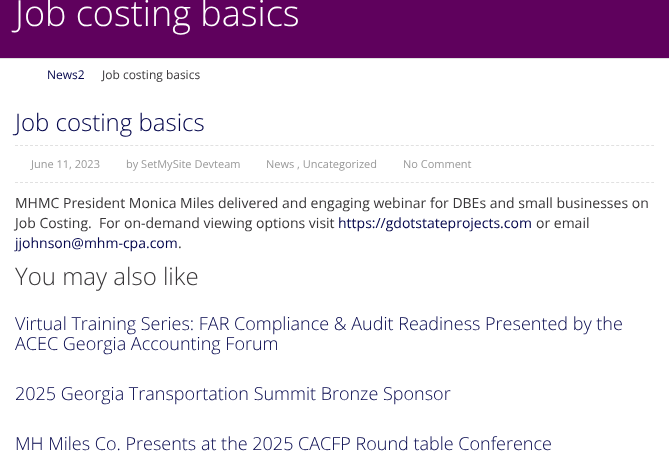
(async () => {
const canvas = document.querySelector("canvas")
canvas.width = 669
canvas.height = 470
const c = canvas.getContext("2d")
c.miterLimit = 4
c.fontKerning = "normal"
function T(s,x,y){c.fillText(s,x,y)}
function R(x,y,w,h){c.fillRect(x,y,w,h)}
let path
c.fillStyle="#fff"
R(0,0,669,470)
c.fillStyle="#5f015d"
R(0,0,669,58)
c.font="300 36px Open Sans"
c.fillStyle="#fff"
T("Job costing basics",15,26)
c.fillStyle="#e0e0e0"
R(0,58,669,1)
c.font="12px Open Sans"
c.fillStyle="#02044b"
T("News2",47,79)
c.fillStyle="#383638"
T("Job costing basics",102,79)
c.font="300 24px Open Sans"
c.fillStyle="#02044b"
T("Job costing basics",15,131)
path = new Path2D("M15 145.5h639")
c.strokeStyle="#e1e1e1"
c.setLineDash([3,2.01])
c.stroke(path)
path = new Path2D("M15 182.5h639")
c.stroke(path)
c.font="11px Open Sans"
c.fillStyle="#999"
T("June 11, 2023",31,168)
T("by SetMySite Devteam",126,168)
T("News , Uncategorized",266,168)
T("No Comment",403,168)
c.font="14px Open Sans"
c.fillStyle="#383638"
T("MHMC President Monica Miles delivered and engaging webinar for DBEs and small businesses on",15,208)
T("Job Costing.  For on-demand viewing options visit",15,228)
c.fillStyle="#02044b"
T("https://gdotstateprojects.com",338,228)
c.fillStyle="#383638"
T("or email",536,228)
c.fillStyle="#02044b"
T("jjohnson@mhm-cpa.com",15,248)
c.fillStyle="#383638"
T(".",178,248)
c.font="300 24px Open Sans"
T("You may also like",15,285)
c.font="300 18px Open Sans"
c.fillStyle="#02044b"
T("Virtual Training Series: FAR Compliance & Audit Readiness Presented by the",15,330)
T("ACEC Georgia Accounting Forum",15,350)
T("2025 Georgia Transportation Summit Bronze Sponsor",15,400)
T("MH Miles Co. Presents at the 2025 CACFP Round table Conference",15,450)
})()
